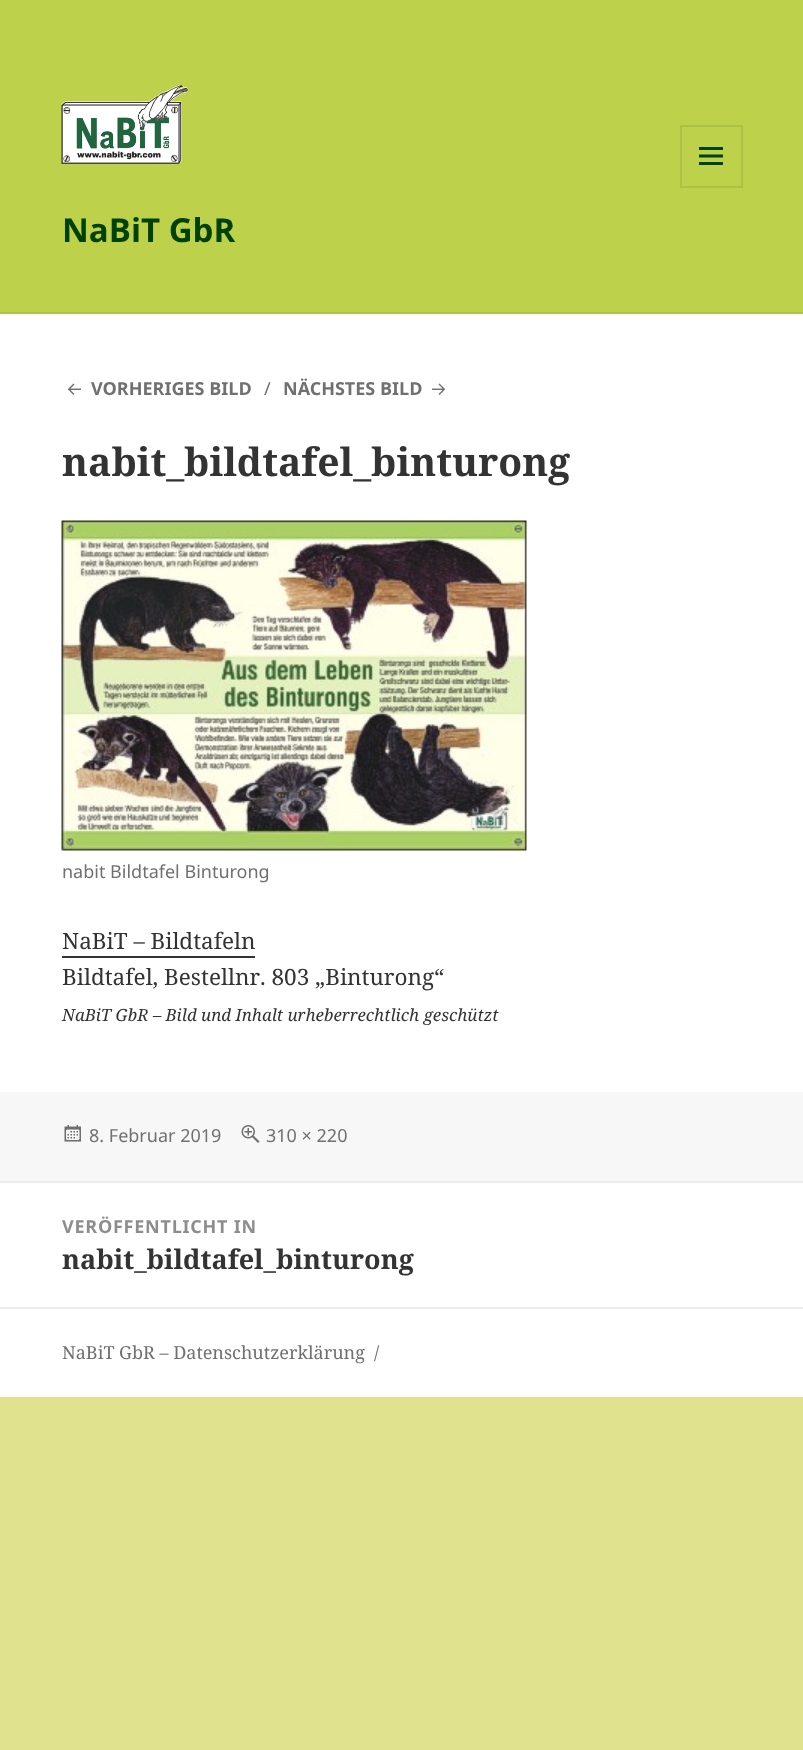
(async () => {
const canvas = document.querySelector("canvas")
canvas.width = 803
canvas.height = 1750
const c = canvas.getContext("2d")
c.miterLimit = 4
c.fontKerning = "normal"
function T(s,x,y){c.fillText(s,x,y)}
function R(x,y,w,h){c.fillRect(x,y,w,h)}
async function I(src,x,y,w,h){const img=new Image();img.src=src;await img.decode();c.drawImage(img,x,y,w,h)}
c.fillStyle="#e1e28e"
R(0,0,803,1750)
c.fillStyle="#bdd14b"
R(0,0,803,312)
c.fillStyle="#afc149"
R(0,312,803,2)
await I("1.png",61,85,127,79)
c.strokeStyle="#aac344"
c.lineWidth=2
c.strokeRect(681,126,61,61)
await I("2.png",699,147,24,18)
c.font="bold 33px Noto Sans"
c.fillStyle="#024201"
T("NaBiT GbR",62,242)
c.fillStyle="#fff"
R(0,314,803,778)
await I("3.png",67,383,14,12)
c.font="bold 18px Noto Sans"
c.fillStyle="#707070"
T("VORHERIGES BILD",91,395)
c.font="18px Noto Sans"
T("∕",264,395)
c.font="bold 18px Noto Sans"
T("NÄCHSTES BILD",283,395)
await I("4.png",432,383,14,12)
c.font="bold 39px Noto Serif"
c.fillStyle="#333"
T("nabit_bildtafel_binturong",62,476)
await I("5.png",61,520,466,331)
c.font="18px Noto Sans"
c.fillStyle="#707070"
T("nabit Bildtafel Binturong",62,878)
c.font="22.5px Noto Serif"
c.fillStyle="#333"
T("NaBiT – Bildtafeln",62,949)
R(62,956,193,2)
T("Bildtafel, Bestellnr. 803 „Binturong“",62,985)
c.font="italic 16.9px Noto Serif"
T("NaBiT GbR – Bild und Inhalt urheberrechtlich geschützt",62,1021)
c.fillStyle="#f7f7f7"
R(0,1092,803,89)
await I("6.png",64,1125,17,17)
c.font="18px Noto Sans"
c.fillStyle="#707070"
T("8. Februar 2019",89,1142)
await I("7.png",241,1125,19,18)
T("310 × 220",266,1142)
c.fillStyle="#fff"
R(0,1183,803,124)
c.fillStyle="#ebebeb"
R(0,1181,803,2)
c.letterSpacing="0.75px"
c.font="bold 18px Noto Sans"
c.fillStyle="#8d8d8d"
T("VERÖFFENTLICHT IN",62,1233)
c.letterSpacing="0px"
c.font="bold 27px Noto Serif"
c.fillStyle="#333"
T("nabit_bildtafel_binturong",62,1269)
c.fillStyle="#fff"
R(0,1309,803,88)
c.fillStyle="#ebebeb"
R(0,1307,803,2)
c.font="18px Noto Serif"
c.fillStyle="#707070"
T("NaBiT GbR – Datenschutzerklärung",62,1359)
T("/",374,1359)
})()
